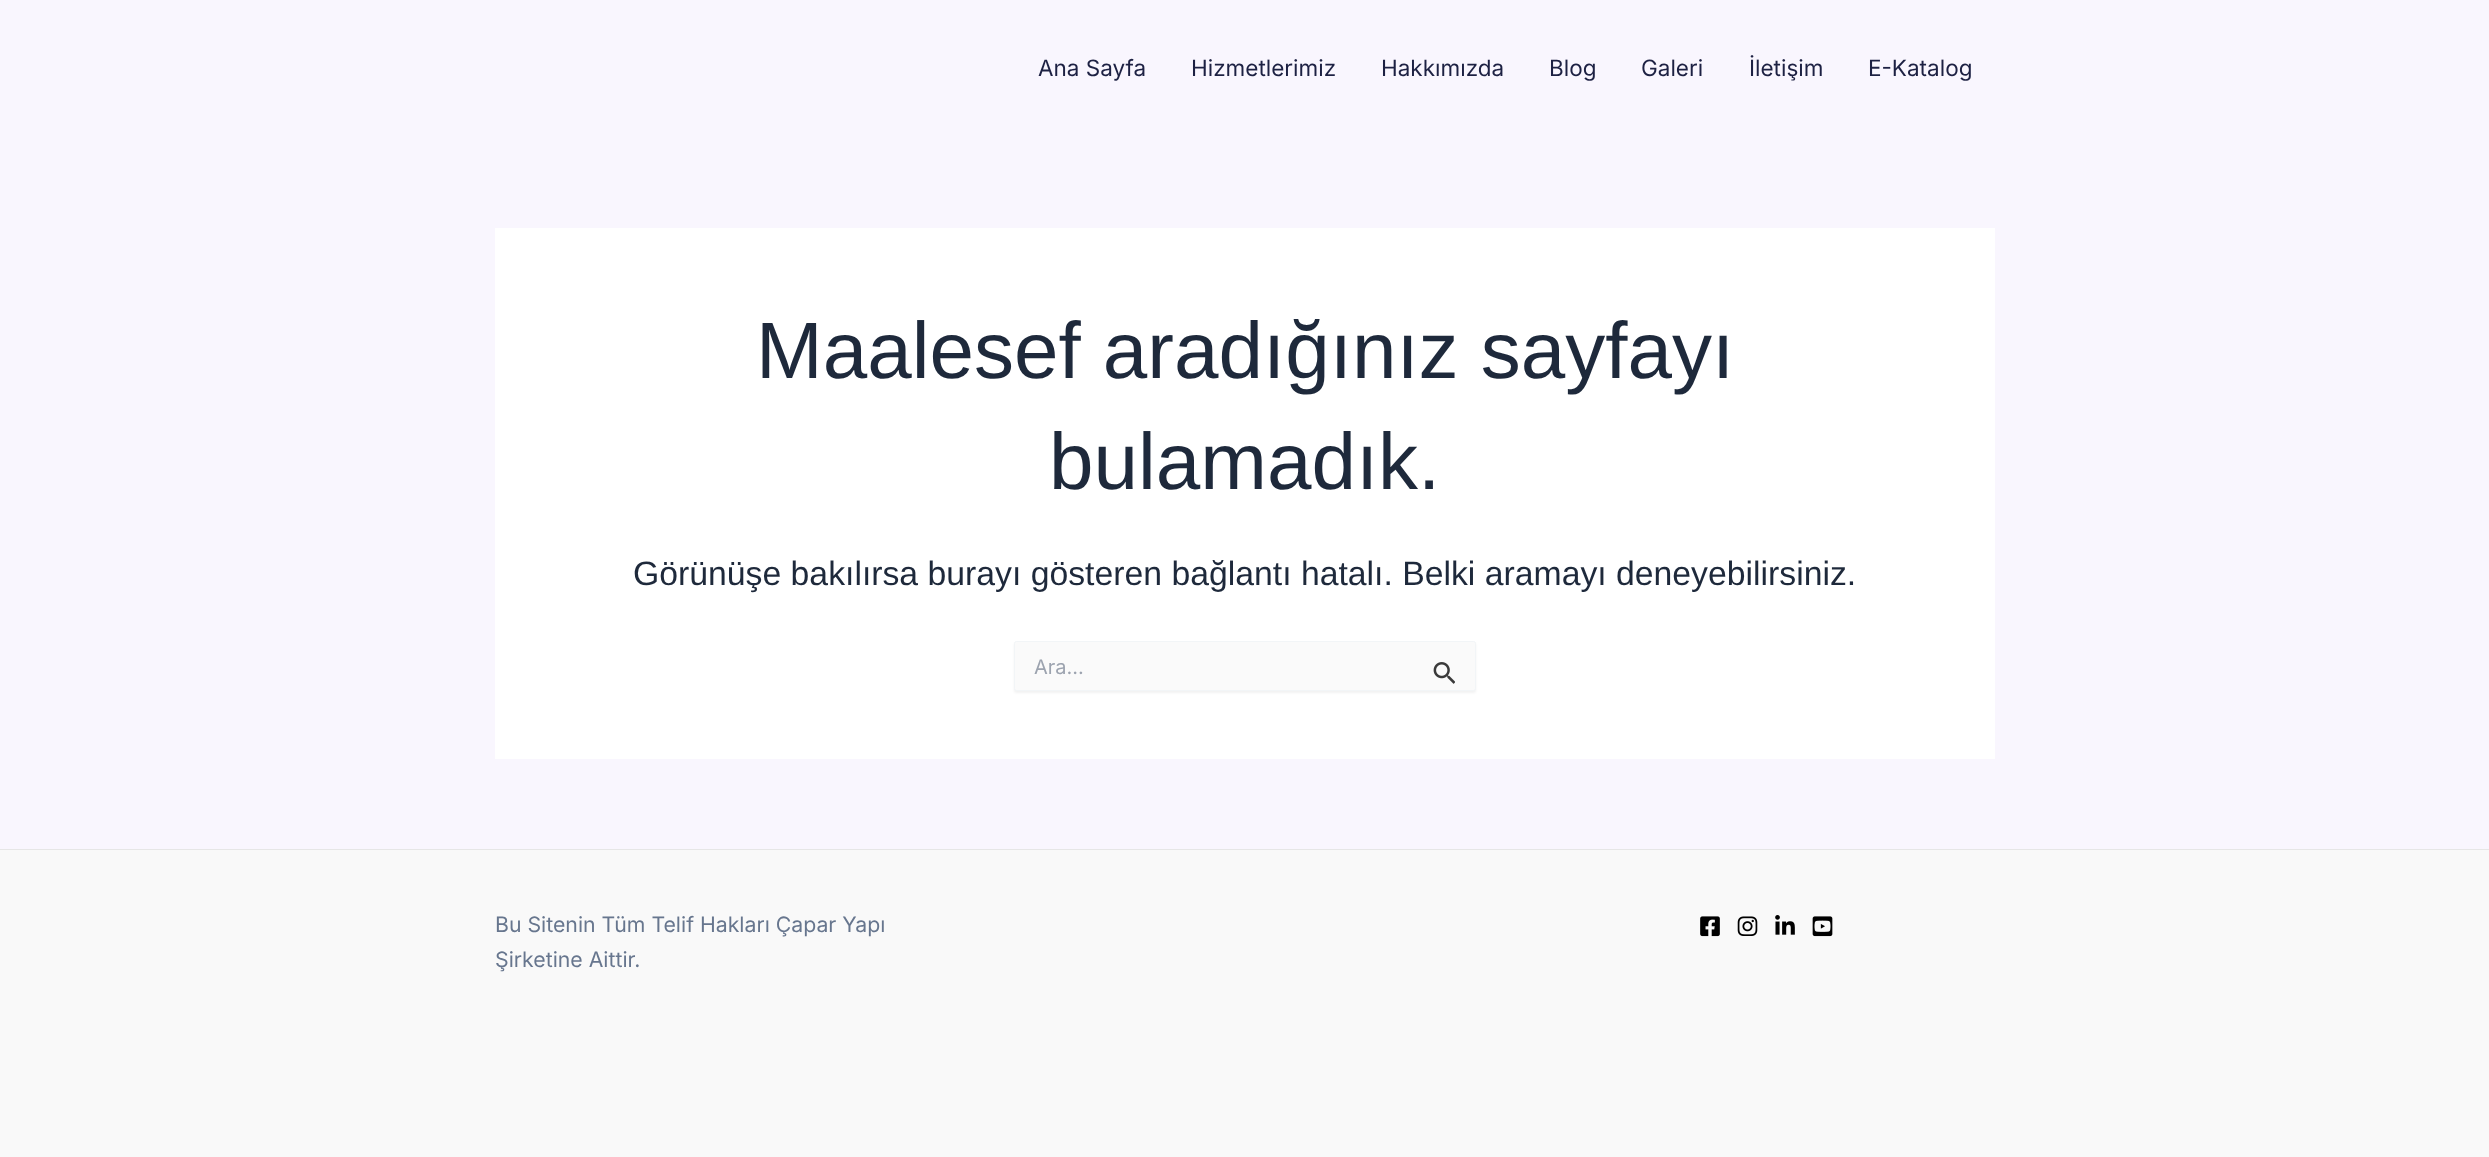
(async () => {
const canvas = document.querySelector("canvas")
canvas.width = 2489
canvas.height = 1157
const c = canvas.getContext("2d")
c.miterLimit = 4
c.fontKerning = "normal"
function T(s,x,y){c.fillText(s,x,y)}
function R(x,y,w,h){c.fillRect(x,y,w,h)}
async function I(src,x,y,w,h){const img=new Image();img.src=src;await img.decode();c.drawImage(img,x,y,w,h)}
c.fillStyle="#f9f6fe"
R(0,0,2489,1157)
c.font="22.5px Inter"
c.fillStyle="#1d2143"
T("Ana Sayfa",1038,76)
T("Hizmetlerimiz",1191,76)
T("Hakkımızda",1381,76)
T("Blog",1549,76)
T("Galeri",1641,76)
T("İletişim",1749,76)
T("E-Katalog",1868,76)
c.fillStyle="#fff"
R(495,228,1500,531)
c.font="80px Liberation Sans"
c.fillStyle="#1e293b"
T("Maalesef aradığınız sayfayı",756,378)
T("bulamadık.",1049,489)
c.font="33.75px Liberation Sans"
T("Görünüşe bakılırsa burayı gösteren bağlantı hatalı. Belki aramayı deneyebilirsiniz.",633,585)
c.fillStyle="#0000000d"
c.filter="blur(1px)"
c.beginPath()
c.roundRect(1014,643,462,50,2.5)
c.fill()
c.filter="none"
c.fillStyle="#fafafa"
c.beginPath()
c.roundRect(1014.5,641.5,461,49,2)
c.fill()
c.strokeStyle="#f2f5f7"
c.stroke()
c.font="20px Inter"
c.fillStyle="#9ca3af"
T("Ara...",1034,674)
await I("1.png",1433,662,22,22)
c.fillStyle="#f9f9f9"
R(0,850,2489,307)
c.fillStyle="#e6e6e6"
R(0,849,2489,1)
c.font="21.25px Inter"
c.fillStyle="#67768e"
T("Bu Sitenin Tüm Telif Hakları Çapar Yapı",495,932)
T("Şirketine Aittir.",495,967)
await I("2.png",1700,916,20,21)
await I("3.png",1737,916,21,20)
await I("4.png",1775,915,20,20)
await I("5.png",1812,916,21,21)
})()
